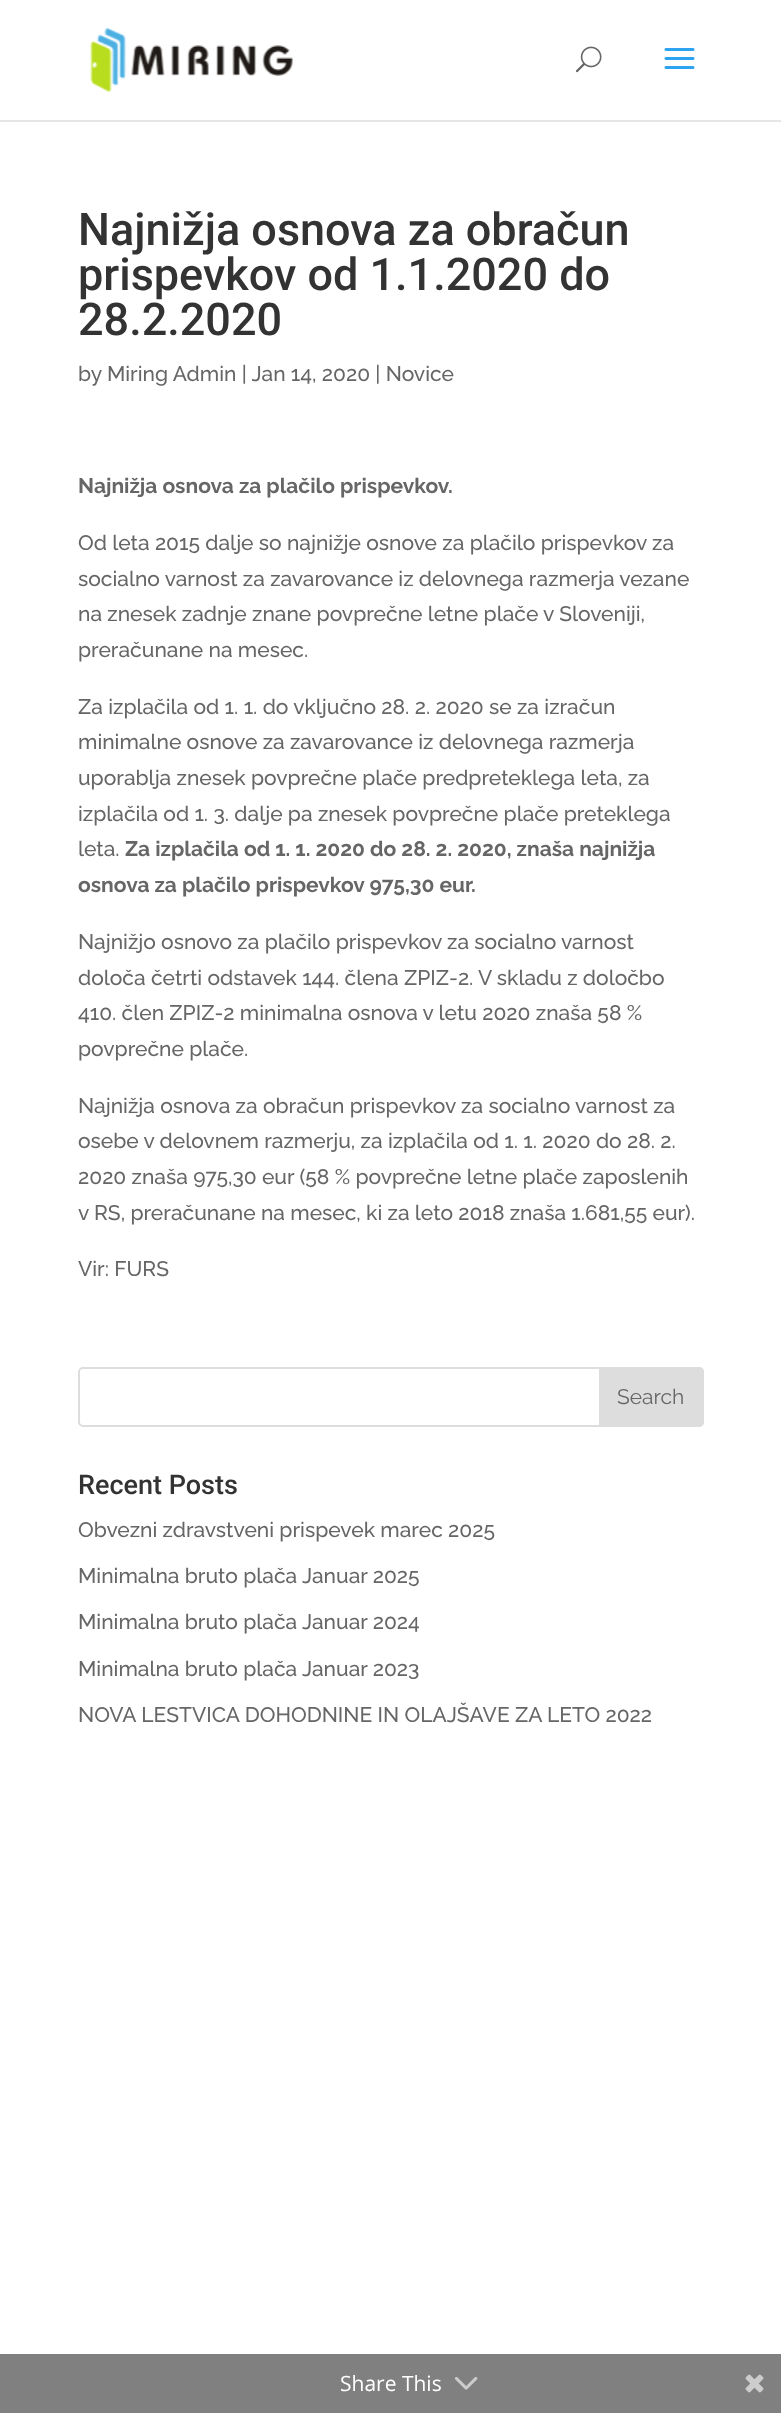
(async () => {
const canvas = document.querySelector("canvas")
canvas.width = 781
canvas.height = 2413
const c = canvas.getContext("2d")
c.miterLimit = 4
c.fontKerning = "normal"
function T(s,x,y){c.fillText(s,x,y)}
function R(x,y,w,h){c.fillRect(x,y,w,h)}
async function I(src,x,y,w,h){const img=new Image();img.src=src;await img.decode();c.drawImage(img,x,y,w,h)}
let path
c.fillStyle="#fff"
R(0,0,781,2413)
c.fillStyle="#e6e6e6"
path = new Path2D("M0 120v2h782v-120v118z")
c.fill(path)
await I("1.png",89,28,205,64)
await I("2.png",575,46,27,27)
await I("3.png",664,48,31,21)
c.font="500 45px Roboto"
c.fillStyle="#333"
T("Najnižja osnova za obračun",78,245)
T("prispevkov od 1.1.2020 do",78,290)
T("28.2.2020",78,335)
c.font="500 21px Raleway"
c.fillStyle="#666"
T("by Miring Admin | Jan 14, 2020 | Novice",78,381)
c.font="bold 21px Raleway"
T("Najnižja osnova za plačilo prispevkov.",78,493)
c.font="500 21px Raleway"
T("Od leta 2015 dalje so najnižje osnove za plačilo prispevkov za",78,550)
T("socialno varnost za zavarovance iz delovnega razmerja vezane",78,586)
T("na znesek zadnje znane povprečne letne plače v Sloveniji,",78,621)
T("preračunane na mesec.",78,657)
T("Za izplačila od 1. 1. do vključno 28. 2. 2020 se za izračun",78,714)
T("minimalne osnove za zavarovance iz delovnega razmerja",78,749)
T("uporablja znesek povprečne plače predpreteklega leta, za",78,785)
T("izplačila od 1. 3. dalje pa znesek povprečne plače preteklega",78,821)
T("leta.",78,856)
c.font="bold 21px Raleway"
T("Za izplačila od 1. 1. 2020 do 28. 2. 2020, znaša najnižja",125,856)
T("osnova za plačilo prispevkov 975,30 eur.",78,892)
c.font="500 21px Raleway"
T("Najnižjo osnovo za plačilo prispevkov za socialno varnost",78,949)
T("določa četrti odstavek 144. člena ZPIZ-2. V skladu z določbo",78,985)
T("410. člen ZPIZ-2 minimalna osnova v letu 2020 znaša 58 %",78,1020)
T("povprečne plače.",78,1056)
T("Najnižja osnova za obračun prispevkov za socialno varnost za",78,1113)
T("osebe v delovnem razmerju, za izplačila od 1. 1. 2020 do 28. 2.",78,1148)
T("2020 znaša 975,30 eur (58 % povprečne letne plače zaposlenih",78,1184)
T("v RS, preračunane na mesec, ki za leto 2018 znaša 1.681,55 eur).",78,1220)
T("Vir: FURS",78,1276)
c.beginPath()
c.roundRect(79,1368,624,58,4)
c.strokeStyle="#ddd"
c.lineWidth=2
c.stroke()
c.fillStyle="#ddd"
c.beginPath()
c.roundRect(600,1368,103,58,[0,4,4,0])
c.fill()
c.stroke()
c.font="21px Raleway"
c.fillStyle="#666"
T("Search",617,1404)
c.font="500 27px Roboto"
c.fillStyle="#333"
T("Recent Posts",78,1494)
c.font="500 21px Raleway"
c.fillStyle="#666"
T("Obvezni zdravstveni prispevek marec 2025",78,1537)
T("Minimalna bruto plača Januar 2025",78,1583)
T("Minimalna bruto plača Januar 2024",78,1629)
T("Minimalna bruto plača Januar 2023",78,1676)
T("NOVA LESTVICA DOHODNINE IN OLAJŠAVE ZA LETO 2022",78,1722)
c.fillStyle="#808080"
R(0,2354,781,59)
c.font="21px Open Sans"
c.fillStyle="#fff"
T("Share This",340,2391)
await I("4.png",454,2377,24,13)
await I("5.png",745,2374,19,19)
})()
